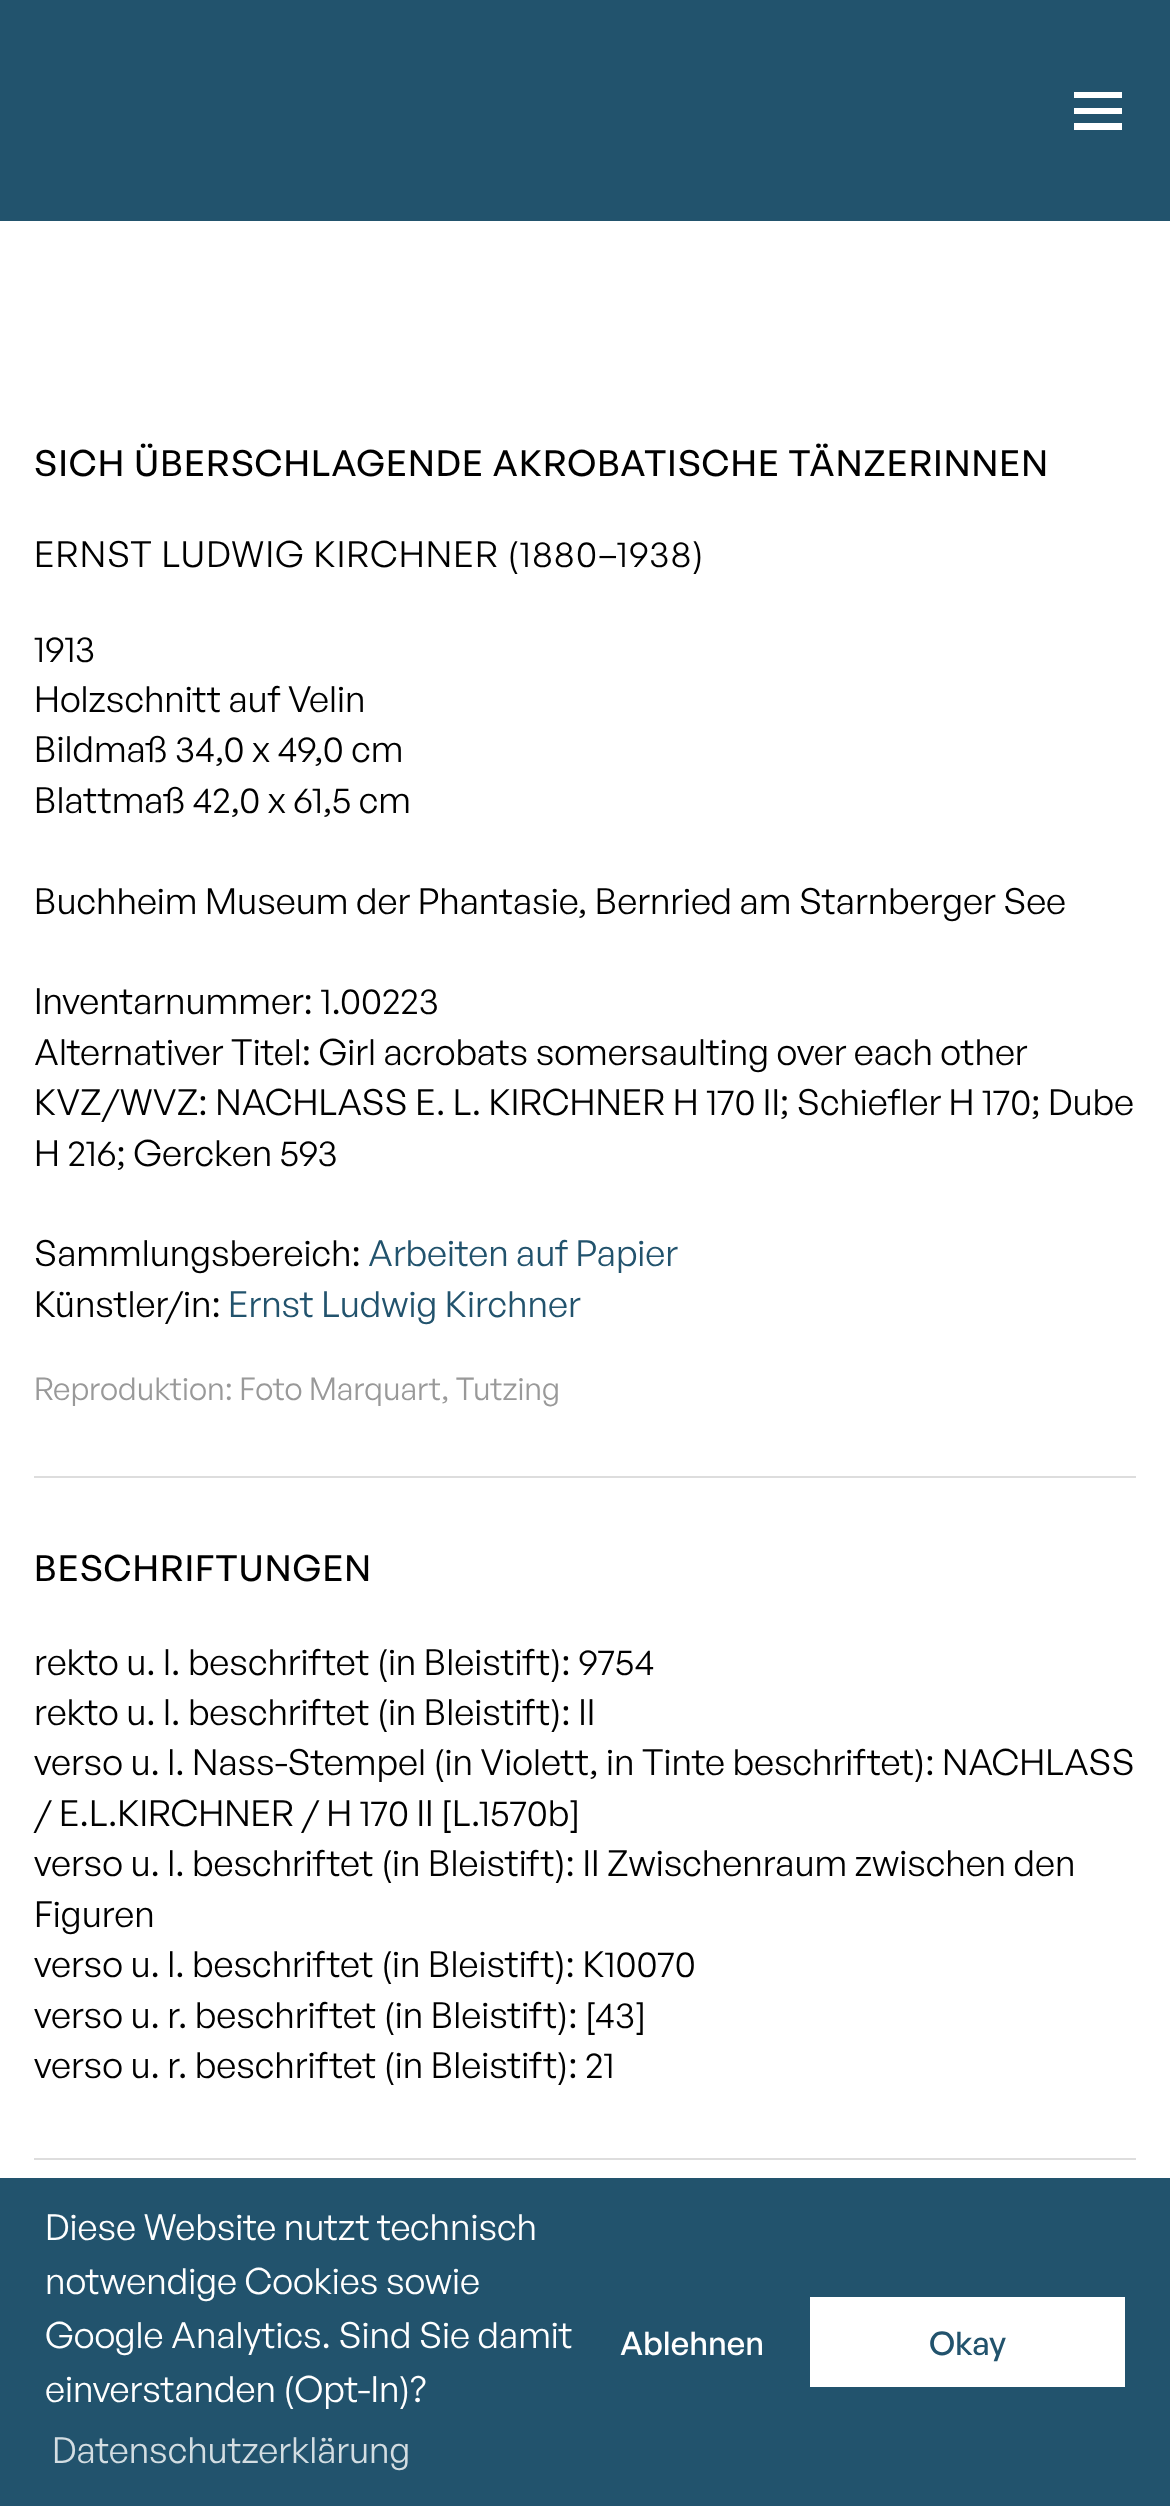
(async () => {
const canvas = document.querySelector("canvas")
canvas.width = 1170
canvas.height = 2506
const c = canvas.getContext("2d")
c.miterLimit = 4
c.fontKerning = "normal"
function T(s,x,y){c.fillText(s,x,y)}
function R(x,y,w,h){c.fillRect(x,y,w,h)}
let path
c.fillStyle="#fff"
R(0,0,1170,2506)
c.fillStyle="#22536d"
R(0,0,1170,221)
c.fillStyle="#fff"
path = new Path2D("M1122 92v6h-48v-6zm-48 22h48v-6h-48zm0 16h48v-7h-48z")
c.fill(path)
c.letterSpacing="1.1px"
c.font="500 36px General Sans"
c.fillStyle="#000"
T("SICH ÜBERSCHLAGENDE AKROBATISCHE TÄNZERINNEN",34,476)
c.font="36px General Sans"
T("ERNST LUDWIG KIRCHNER (1880–1938)",34,567)
c.letterSpacing="0px"
T("1913",34,662)
T("Holzschnitt auf Velin",34,712)
T("Bildmaß 34,0 x 49,0 cm",34,762)
T("Blattmaß 42,0 x 61,5 cm",34,813)
T("Buchheim Museum der Phantasie, Bernried am Starnberger See",34,914)
T("Inventarnummer: 1.00223",34,1014)
T("Alternativer Titel: Girl acrobats somersaulting over each other",34,1065)
T("KVZ/WVZ: NACHLASS E. L. KIRCHNER H 170 II; Schiefler H 170; Dube",34,1115)
T("H 216; Gercken 593",34,1166)
T("Sammlungsbereich:",34,1266)
c.fillStyle="#22536d"
T("Arbeiten auf Papier",368,1266)
c.fillStyle="#000"
T("Künstler/in:",34,1317)
c.fillStyle="#22536d"
T("Ernst Ludwig Kirchner",228,1317)
c.font="31.3px General Sans"
c.fillStyle="#999"
T("Reproduktion: Foto Marquart, Tutzing",34,1400)
c.fillStyle="#ddd"
R(34,1476,1102,2)
c.letterSpacing="1.1px"
c.font="500 36px General Sans"
c.fillStyle="#000"
T("BESCHRIFTUNGEN",34,1581)
c.letterSpacing="0px"
c.font="36px General Sans"
T("rekto u. l. beschriftet (in Bleistift): 9754",34,1675)
T("rekto u. l. beschriftet (in Bleistift): II",34,1725)
T("verso u. l. Nass-Stempel (in Violett, in Tinte beschriftet): NACHLASS",34,1775)
T("/ E.L.KIRCHNER / H 170 II [L.1570b]",34,1826)
T("verso u. l. beschriftet (in Bleistift): II Zwischenraum zwischen den",34,1876)
T("Figuren",34,1927)
T("verso u. l. beschriftet (in Bleistift): K10070",34,1977)
T("verso u. r. beschriftet (in Bleistift): [43]",34,2028)
T("verso u. r. beschriftet (in Bleistift): 21",34,2078)
c.fillStyle="#ddd"
R(34,2158,1102,2)
c.fillStyle="#22536d"
R(0,2178,1170,328)
c.fillStyle="#fff"
T("Diese Website nutzt technisch",45,2240)
T("notwendige Cookies sowie",45,2294)
T("Google Analytics. Sind Sie damit",45,2348)
T("einverstanden (Opt-In)?",45,2402)
c.fillStyle="#d3dde2"
T("Datenschutzerklärung",52,2463)
c.font="500 32.5px 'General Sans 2'"
c.fillStyle="#fff"
T("Ablehnen",620,2355)
R(810,2297,315,90)
c.fillStyle="#22536d"
T("Okay",929,2355)
})()
